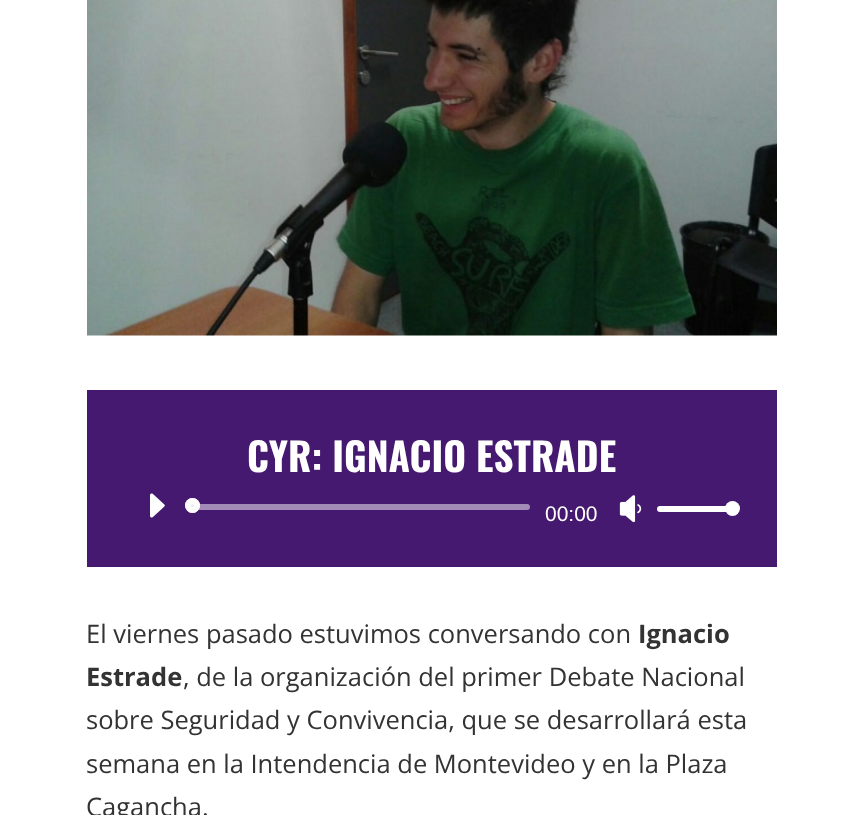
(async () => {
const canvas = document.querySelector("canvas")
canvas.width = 863
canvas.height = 815
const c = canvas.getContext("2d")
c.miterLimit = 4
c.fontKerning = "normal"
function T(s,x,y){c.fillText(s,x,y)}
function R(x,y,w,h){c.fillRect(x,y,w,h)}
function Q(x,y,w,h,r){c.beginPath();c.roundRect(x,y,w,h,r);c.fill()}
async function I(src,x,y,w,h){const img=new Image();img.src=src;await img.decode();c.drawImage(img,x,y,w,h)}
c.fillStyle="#fff"
R(0,0,863,815)
await I("1.png",87,0,690,336)
c.fillStyle="#45196f"
R(87,390,690,177)
c.font="bold 39px Oswald"
c.fillStyle="#fff"
T("CYR: IGNACIO ESTRADE",247,472)
await I("2.png",150,493,15,25)
c.fillStyle="#a28cb7"
Q(195,504,335,6,3)
c.fillStyle="#ffffffe6"
c.beginPath()
c.arc(192.5,505.5,7.5,0,7)
c.fill()
c.beginPath()
c.arc(192.5,505.5,4.5,0,7)
c.strokeStyle="#ffffffe6"
c.lineWidth=6
c.stroke()
c.font="21px Liberation Sans"
c.fillStyle="#fff"
T("00:00",545,521)
await I("3.png",619,495,23,27)
Q(657,506,75,6,3)
c.beginPath()
c.arc(732.5,508.5,7.5,0,7)
c.fill()
c.font="25.5px Open Sans"
c.fillStyle="#333"
T("El viernes pasado estuvimos conversando con",86,643)
c.font="bold 25.5px Open Sans"
T("Ignacio",638,643)
T("Estrade",86,686)
c.font="25.5px Open Sans"
T(", de la organización del primer Debate Nacional",183,686)
T("sobre Seguridad y Convivencia, que se desarrollará esta",86,729)
T("semana en la Intendencia de Montevideo y en la Plaza",86,773)
T("Cagancha.",86,816)
})()
